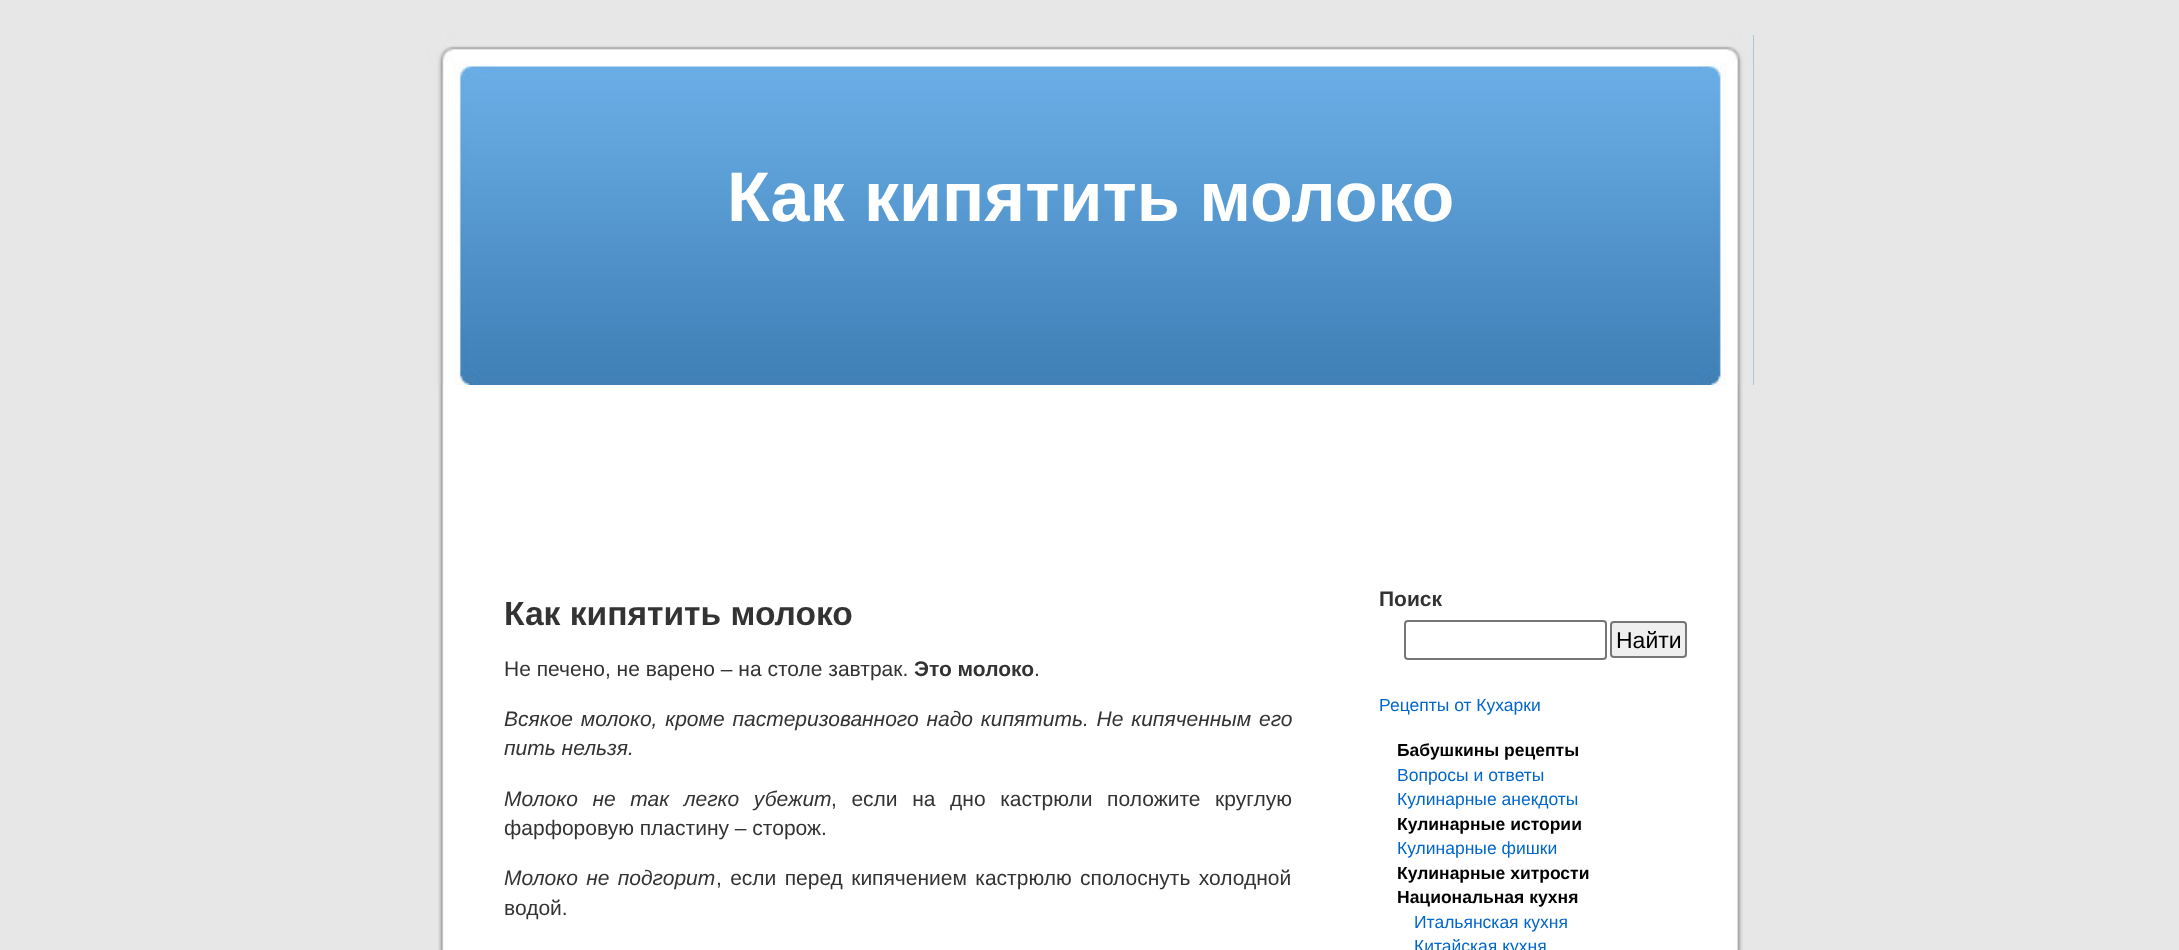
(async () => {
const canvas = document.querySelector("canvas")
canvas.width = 2179
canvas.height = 950
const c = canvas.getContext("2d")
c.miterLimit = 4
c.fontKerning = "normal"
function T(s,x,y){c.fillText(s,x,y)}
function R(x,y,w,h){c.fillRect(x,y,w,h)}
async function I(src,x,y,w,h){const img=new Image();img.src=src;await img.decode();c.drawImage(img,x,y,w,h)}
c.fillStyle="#e7e7e7"
R(0,0,2179,950)
await I("1.png",438,385,1305,565)
c.fillStyle="#73a0c5"
R(1753,35,1,350)
await I("2.png",427,35,1327,350)
c.font="bold 70px Liberation Sans"
c.fillStyle="#fff"
T("Как кипятить молоко",727,221)
c.font="bold 33.6px Liberation Sans"
c.fillStyle="#333"
T("Как кипятить молоко",504,625)
c.font="21px Liberation Sans"
T("Не печено, не варено – на столе завтрак.",504,676)
c.font="bold 21px Liberation Sans"
T("Это молоко",914,676)
c.font="21px Liberation Sans"
T(".",1034,676)
c.wordSpacing="2px"
c.font="italic 21px Liberation Sans"
T("Всякое молоко, кроме пастеризованного надо кипятить. Не кипяченным его",504,726)
c.wordSpacing="0px"
T("пить нельзя.",504,755)
c.wordSpacing="8.75px"
T("Молоко не так легко убежит",504,806)
c.font="21px Liberation Sans"
T(", если на дно кастрюли положите круглую",831,806)
c.wordSpacing="0px"
T("фарфоровую пластину – сторож.",504,835)
c.wordSpacing="2.5px"
c.font="italic 21px Liberation Sans"
T("Молоко не подгорит",504,885)
c.font="21px Liberation Sans"
T(", если перед кипячением кастрюлю сполоснуть холодной",716,885)
c.wordSpacing="0px"
T("водой.",504,915)
c.font="bold 21px Liberation Sans"
T("Поиск",1379,606)
c.beginPath()
c.roundRect(1405,621,201,38,3)
c.strokeStyle="#767676"
c.lineWidth=2
c.stroke()
c.fillStyle="#efefef"
c.beginPath()
c.roundRect(1611,622,75,35,3)
c.fill()
c.stroke()
c.font="23px Liberation Sans"
c.fillStyle="#000"
T("Найти",1616,648)
c.font="17.5px Liberation Sans"
c.fillStyle="#06c"
T("Рецепты от Кухарки",1379,711)
c.font="bold 17.5px Liberation Sans"
c.fillStyle="#000"
T("Бабушкины рецепты",1397,756)
c.font="17.5px Liberation Sans"
c.fillStyle="#06c"
T("Вопросы и ответы",1397,781)
T("Кулинарные анекдоты",1397,805)
c.font="bold 17.5px Liberation Sans"
c.fillStyle="#000"
T("Кулинарные истории",1397,830)
c.font="17.5px Liberation Sans"
c.fillStyle="#06c"
T("Кулинарные фишки",1397,854)
c.font="bold 17.5px Liberation Sans"
c.fillStyle="#000"
T("Кулинарные хитрости",1397,879)
T("Национальная кухня",1397,903)
c.font="17.5px Liberation Sans"
c.fillStyle="#06c"
T("Итальянская кухня",1414,928)
T("Китайская кухня",1414,952)
})()
